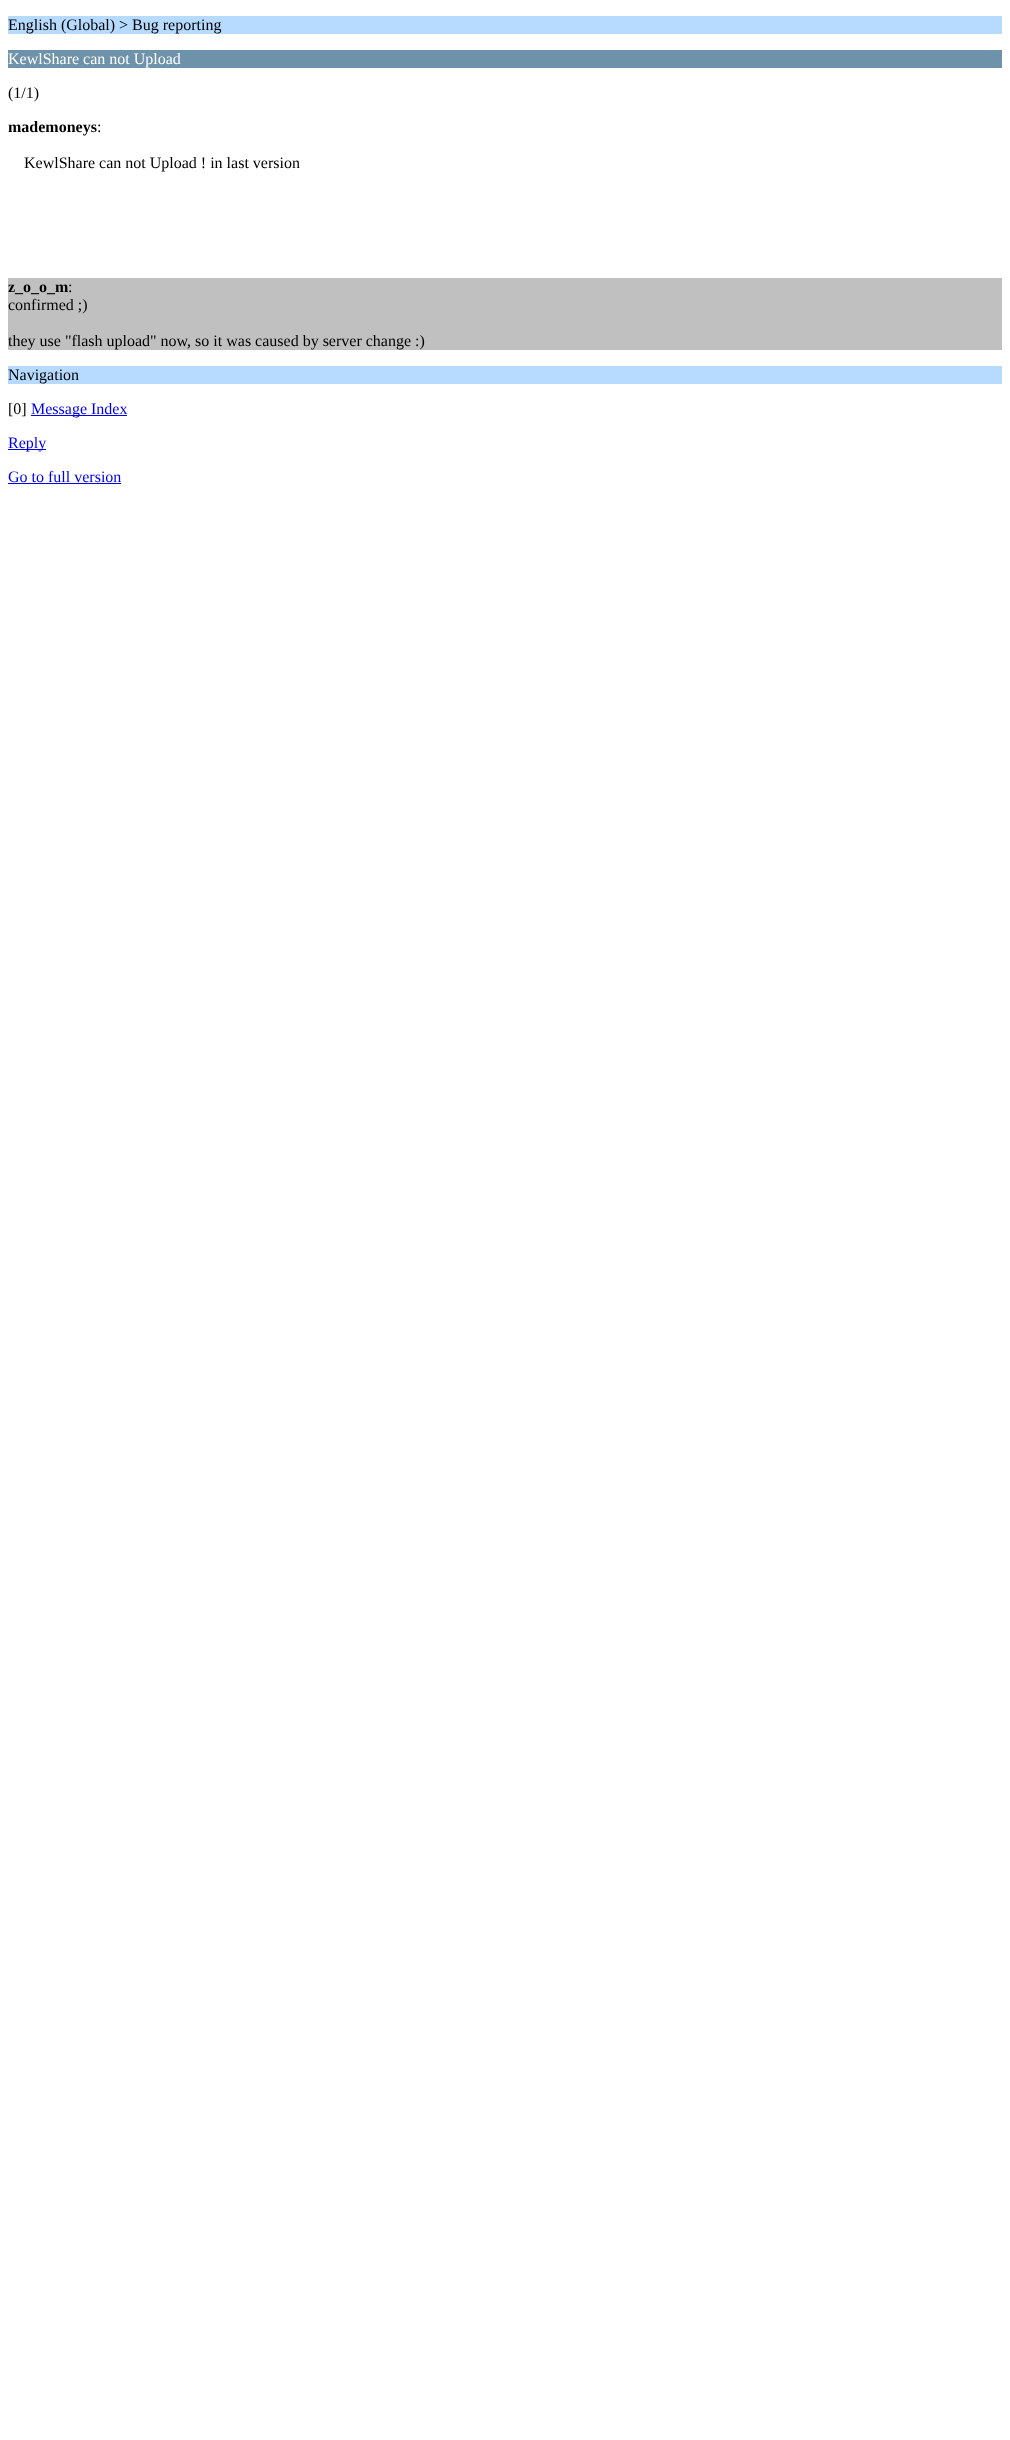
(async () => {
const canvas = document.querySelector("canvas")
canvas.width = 1010
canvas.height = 2440
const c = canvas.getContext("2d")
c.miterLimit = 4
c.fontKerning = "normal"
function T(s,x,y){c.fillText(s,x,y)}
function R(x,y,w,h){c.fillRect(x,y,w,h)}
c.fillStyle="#fff"
R(0,0,1010,2440)
c.fillStyle="#b6dbff"
R(8,16,994,18)
c.font="16px Liberation Serif"
c.fillStyle="#000"
T("English (Global) > Bug reporting",8,30)
c.fillStyle="#6d92aa"
R(8,50,994,18)
c.fillStyle="#fff"
T("KewlShare can not Upload",8,64)
c.fillStyle="#000"
T("(1/1)",8,98)
c.font="bold 16px Liberation Serif"
T("mademoneys",8,132)
c.font="16px Liberation Serif"
T(":",97,132)
T("KewlShare can not Upload ! in last version",24,168)
c.fillStyle="#c0c0c0"
R(8,278,994,72)
c.font="bold 16px Liberation Serif"
c.fillStyle="#000"
T("z_o_o_m",8,292)
c.font="16px Liberation Serif"
T(":",68,292)
T("confirmed ;)",8,310)
T("they use \"flash upload\" now, so it was caused by server change :)",8,346)
c.fillStyle="#b6dbff"
R(8,366,994,18)
c.fillStyle="#000"
T("Navigation",8,380)
T("[0]",8,414)
c.fillStyle="#00e"
R(31,415,96,1)
T("Message Index",31,414)
R(8,449,38,1)
T("Reply",8,448)
T("Go to full version",8,482)
R(8,483,113,1)
})()
